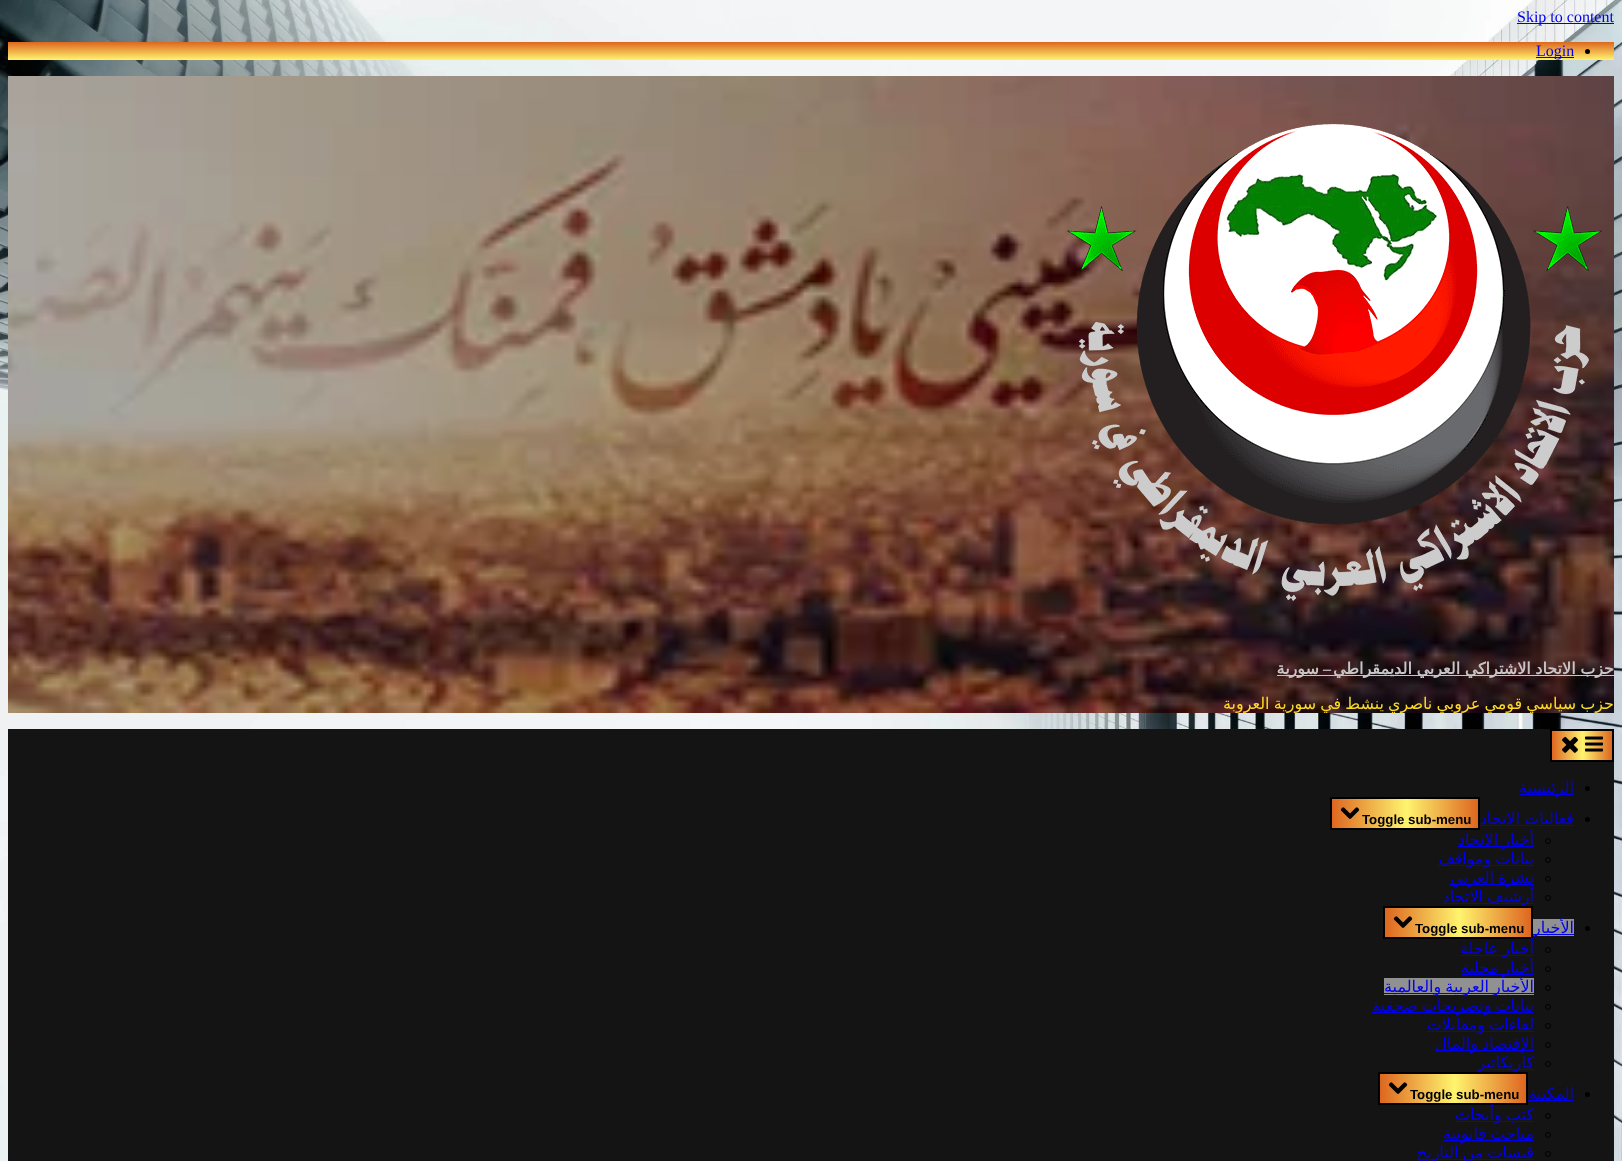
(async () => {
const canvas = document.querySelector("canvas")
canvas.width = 1622
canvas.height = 1161
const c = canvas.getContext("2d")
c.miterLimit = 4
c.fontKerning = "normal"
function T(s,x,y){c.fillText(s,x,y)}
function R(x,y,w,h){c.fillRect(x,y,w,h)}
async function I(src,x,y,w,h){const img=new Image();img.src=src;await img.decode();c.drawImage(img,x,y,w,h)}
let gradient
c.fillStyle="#fff"
R(0,0,1622,1161)
await I("1.png",0,0,1622,1161)
c.fillStyle="#00e"
R(1517,23,97,1)
c.font="16px Liberation Serif"
T("Skip to content",1517,22)
gradient = c.createLinearGradient(811,60,811,42)
gradient.addColorStop(0,"#fff46e")
gradient.addColorStop(1,"#dd6620")
c.fillStyle = gradient
R(8,42,1606,18)
c.fillStyle="#000"
c.beginPath()
c.arc(1587.5,51.5,2.5,0,7)
c.fill()
c.fillStyle="#00e"
R(1536,57,38,1)
T("Login",1536,56)
await I("2.png",8,76,1606,637)
await I("3.png",1067,124,535,477)
c.fillStyle="#c6c6c6"
R(1277,675,337,1)
c.wordSpacing="-0.5px"
c.direction="rtl"
c.font="bold 16px DejaVu Sans"
T("حزب الاتحاد الاشتراكي العربي الديمقراطي",1614,674)
c.wordSpacing="0px"
c.font="bold 16px Liberation Serif"
T("–",1331,674)
c.font="bold 16px DejaVu Sans"
T("سورية",1319,674)
c.wordSpacing="-1px"
c.font="16px DejaVu Sans"
c.fillStyle="#ffda21"
T("حزب سياسي قومي عروبي ناصري ينشط في سورية العروبة",1614,709)
c.fillStyle="#141414"
R(8,729,1606,432)
gradient = c.createLinearGradient(1552,746,1612,746)
gradient.addColorStop(0,"#dd6620")
gradient.addColorStop(.51,"#fff46e")
gradient.addColorStop(1,"#dd6620")
c.fillStyle = gradient
R(1552,731,60,29)
c.strokeStyle="#000"
c.lineWidth=2
c.strokeRect(1551,730,62,31)
await I("4.png",1585,736,18,16)
await I("5.png",1562,736,16,17)
c.fillStyle="#000"
c.beginPath()
c.arc(1587.5,788.5,2.5,0,7)
c.fill()
c.fillStyle="#00e"
R(1519,794,55,1)
c.wordSpacing="0px"
T("الرئيسية",1574,793)
c.fillStyle="#000"
c.beginPath()
c.arc(1587.5,819.5,2.5,0,7)
c.fill()
c.fillStyle="#00e"
R(1480,825,94,1)
c.wordSpacing="-1px"
T("فعاليات الاتحاد",1574,824)
gradient = c.createLinearGradient(1332,814,1478,814)
gradient.addColorStop(0,"#dd6620")
gradient.addColorStop(.51,"#fff46e")
gradient.addColorStop(1,"#dd6620")
c.fillStyle = gradient
R(1332,799,146,29)
c.strokeRect(1331,798,148,31)
c.wordSpacing="0px"
c.direction="ltr"
c.font="bold 13.25px Liberation Sans"
c.fillStyle="#000"
T("Toggle sub-menu",1362,824)
await I("6.png",1340,807,20,12)
c.beginPath()
c.arc(1548,841,2.5,0,7)
c.lineWidth=1
c.stroke()
c.fillStyle="#00e"
R(1458,846,76,1)
c.wordSpacing="-1px"
c.direction="rtl"
c.font="16px DejaVu Sans"
T("أخبار الاتحاد",1534,845)
c.beginPath()
c.arc(1548,860,2.5,0,7)
c.stroke()
R(1438,865,96,1)
T("بيانات ومواقف",1534,864)
c.beginPath()
c.arc(1548,879,2.5,0,7)
c.stroke()
R(1450,884,84,1)
T("نشرة العربي",1534,883)
c.beginPath()
c.arc(1548,898,2.5,0,7)
c.stroke()
R(1443,903,91,1)
T("أرشيف الاتحاد",1534,902)
c.fillStyle="#000"
c.beginPath()
c.arc(1587.5,928.5,2.5,0,7)
c.fill()
c.fillStyle="#919191"
R(1533,919,41,17)
c.fillStyle="#00e"
R(1533,934,41,1)
c.wordSpacing="0px"
T("الأخبار",1574,933)
gradient = c.createLinearGradient(1385,923,1531,923)
gradient.addColorStop(0,"#dd6620")
gradient.addColorStop(.51,"#fff46e")
gradient.addColorStop(1,"#dd6620")
c.fillStyle = gradient
R(1385,908,146,29)
c.lineWidth=2
c.strokeRect(1384,907,148,31)
c.direction="ltr"
c.font="bold 13.25px Liberation Sans"
c.fillStyle="#000"
T("Toggle sub-menu",1415,933)
await I("6.png",1393,916,20,12)
c.beginPath()
c.arc(1548,950,2.5,0,7)
c.lineWidth=1
c.stroke()
c.fillStyle="#00e"
R(1460,955,74,1)
c.wordSpacing="-1px"
c.direction="rtl"
c.font="16px DejaVu Sans"
T("أخبار عاجلة",1534,954)
c.beginPath()
c.arc(1548,969,2.5,0,7)
c.stroke()
R(1461,974,73,1)
T("أخبار محلية",1534,973)
c.beginPath()
c.arc(1548,988,2.5,0,7)
c.stroke()
c.fillStyle="#919191"
R(1384,978,150,17)
c.fillStyle="#00e"
R(1384,993,150,1)
T("الأخبار العربية والعالمية",1534,992)
c.beginPath()
c.arc(1548,1007,2.5,0,7)
c.stroke()
R(1372,1012,162,1)
T("بيانات وتصريحات صحفية",1534,1011)
c.beginPath()
c.arc(1548,1026,2.5,0,7)
c.stroke()
R(1427,1031,107,1)
T("لقاءات ومقابلات",1534,1030)
c.beginPath()
c.arc(1548,1045,2.5,0,7)
c.stroke()
R(1435,1050,99,1)
T("الإقتصاد والمال",1534,1049)
c.beginPath()
c.arc(1548,1064,2.5,0,7)
c.stroke()
R(1478,1069,56,1)
c.wordSpacing="0px"
T("كاريكاتير",1534,1068)
c.fillStyle="#000"
c.beginPath()
c.arc(1587.5,1094.5,2.5,0,7)
c.fill()
c.fillStyle="#00e"
R(1528,1100,46,1)
T("المكتبة",1574,1099)
gradient = c.createLinearGradient(1380,1089,1526,1089)
gradient.addColorStop(0,"#dd6620")
gradient.addColorStop(.51,"#fff46e")
gradient.addColorStop(1,"#dd6620")
c.fillStyle = gradient
R(1380,1074,146,29)
c.lineWidth=2
c.strokeRect(1379,1073,148,31)
c.direction="ltr"
c.font="bold 13.25px Liberation Sans"
c.fillStyle="#000"
T("Toggle sub-menu",1410,1099)
await I("6.png",1388,1082,20,12)
c.beginPath()
c.arc(1548,1116,2.5,0,7)
c.lineWidth=1
c.stroke()
c.fillStyle="#00e"
R(1455,1121,79,1)
c.wordSpacing="-1px"
c.direction="rtl"
c.font="16px DejaVu Sans"
T("كتب وأبحاث",1534,1120)
c.beginPath()
c.arc(1548,1135,2.5,0,7)
c.stroke()
R(1443,1140,91,1)
T("مباحث قانونية",1534,1139)
c.beginPath()
c.arc(1548,1154,2.5,0,7)
c.stroke()
R(1417,1159,117,1)
T("قبسات من التاريخ",1534,1158)
})()
